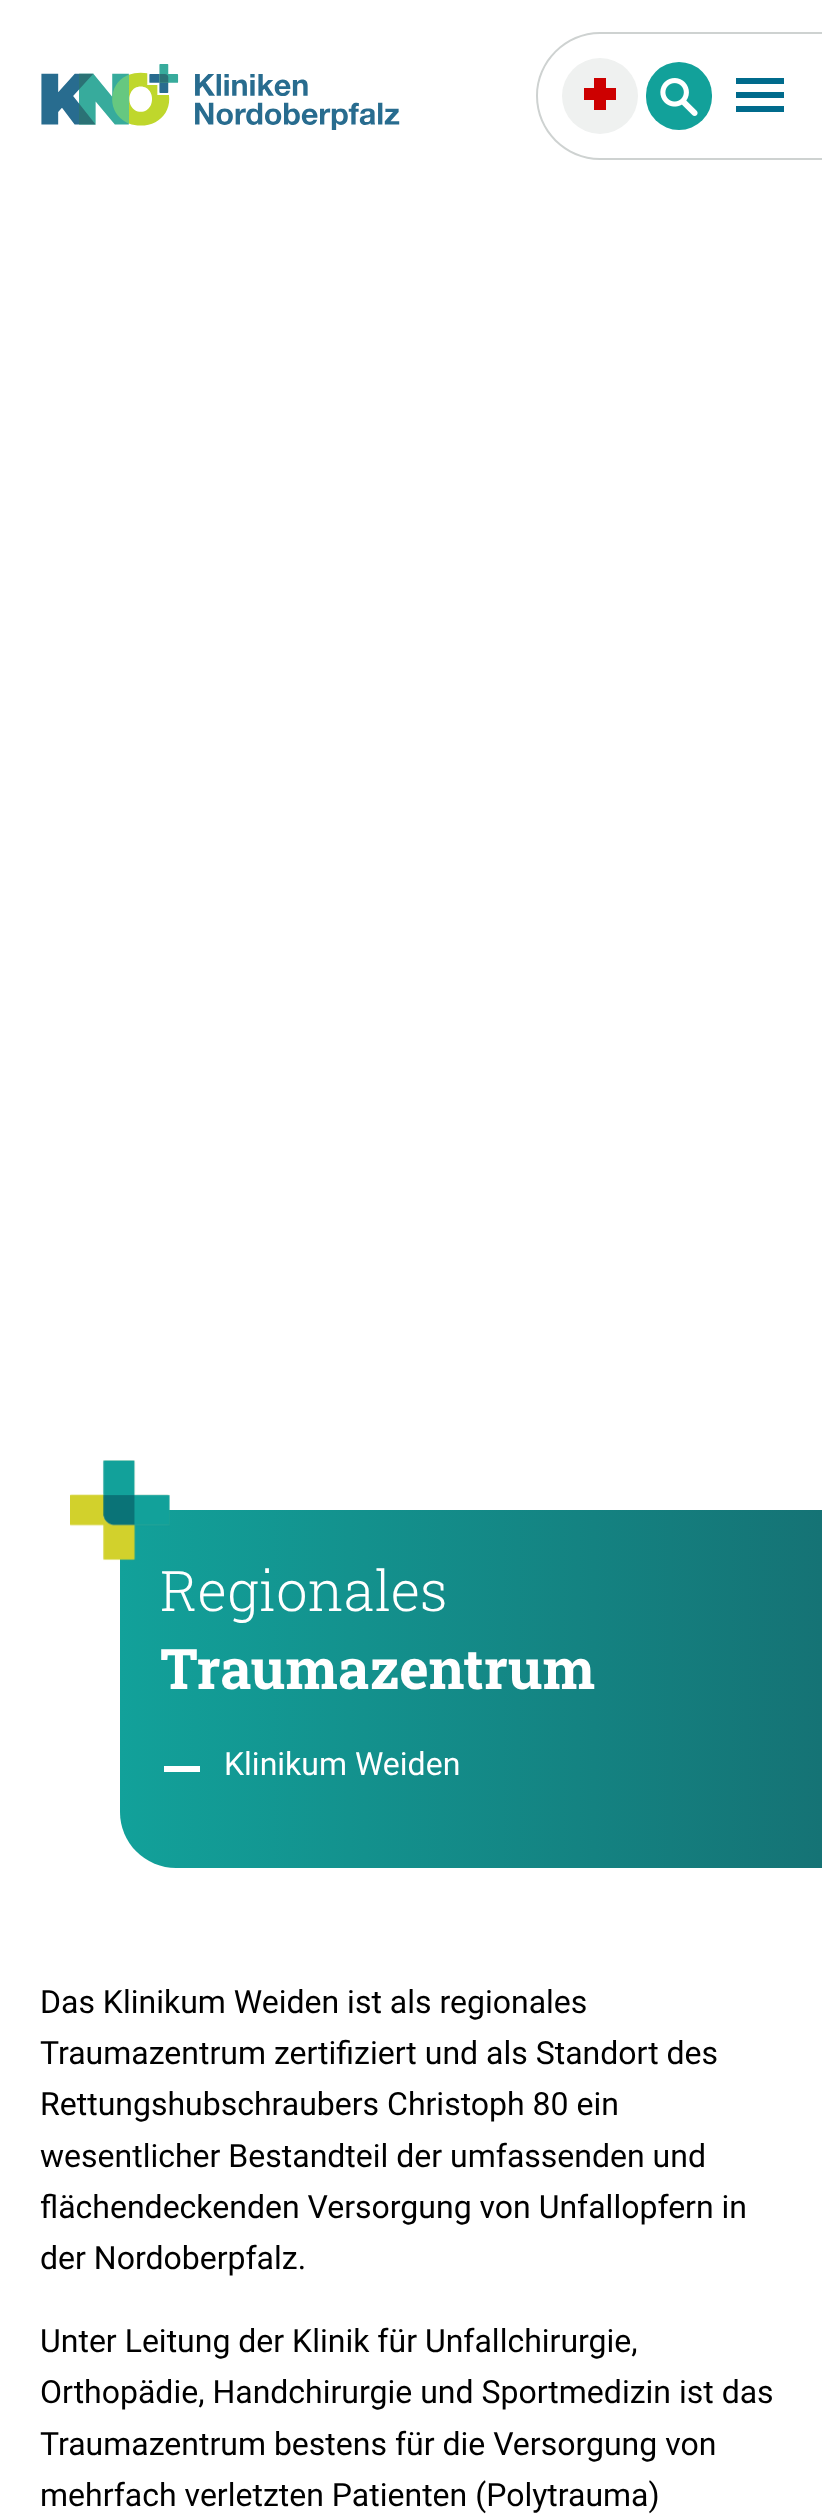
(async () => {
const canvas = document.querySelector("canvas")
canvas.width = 822
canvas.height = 2515
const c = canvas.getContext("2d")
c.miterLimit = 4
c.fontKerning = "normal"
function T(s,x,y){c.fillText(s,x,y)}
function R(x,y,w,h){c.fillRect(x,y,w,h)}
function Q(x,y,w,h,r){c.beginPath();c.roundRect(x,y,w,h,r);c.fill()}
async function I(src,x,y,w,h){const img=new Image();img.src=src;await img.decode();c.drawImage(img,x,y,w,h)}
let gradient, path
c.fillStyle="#fff"
R(0,0,822,2515)
await I("1.png",41,64,359,66)
c.fillStyle="#ced2d1"
path = new Path2D("M600 32h222v128h-222c-35 0-64-29-64-64c0-35 29-64 64-64zm0 2h222v124h-222c-34 0-62-28-62-62c0-34 28-62 62-62z")
c.fill(path,"evenodd")
c.fillStyle="#eff1f0"
c.beginPath()
c.arc(600,96,38,0,7)
c.fill()
await I("2.png",584,78,32,32)
c.fillStyle="#12a19a"
Q(646,62,66,68,33)
await I("3.png",660,78,38,38)
c.fillStyle="#006b8c"
R(736,78,48,6)
R(736,92,48,6)
R(736,106,48,6)
gradient = c.createLinearGradient(822,1689,120,1689)
gradient.addColorStop(0,"#157375")
gradient.addColorStop(1,"#12a19a")
c.fillStyle = gradient
c.beginPath()
c.roundRect(120,1510,702,358,[0,0,0,56])
c.fill()
await I("4.png",70,1460,100,101)
c.font="300 56px Roboto Slab"
c.fillStyle="#fff"
T("Regionales",160,1611)
c.font="bold 56px Roboto Slab"
T("Traumazentrum",160,1689)
R(164,1766,36,6)
c.font="32px Roboto"
T("Klinikum Weiden",224,1775)
c.fillStyle="#000"
T("Das Klinikum Weiden ist als regionales",40,2013)
T("Traumazentrum zertifiziert und als Standort des",40,2064)
T("Rettungshubschraubers Christoph 80 ein",40,2115)
T("wesentlicher Bestandteil der umfassenden und",40,2167)
T("flächendeckenden Versorgung von Unfallopfern in",40,2218)
T("der Nordoberpfalz.",40,2269)
T("Unter Leitung der Klinik für Unfallchirurgie,",40,2352)
T("Orthopädie, Handchirurgie und Sportmedizin ist das",40,2403)
T("Traumazentrum bestens für die Versorgung von",40,2455)
T("mehrfach verletzten Patienten (Polytrauma)",40,2506)
})()
